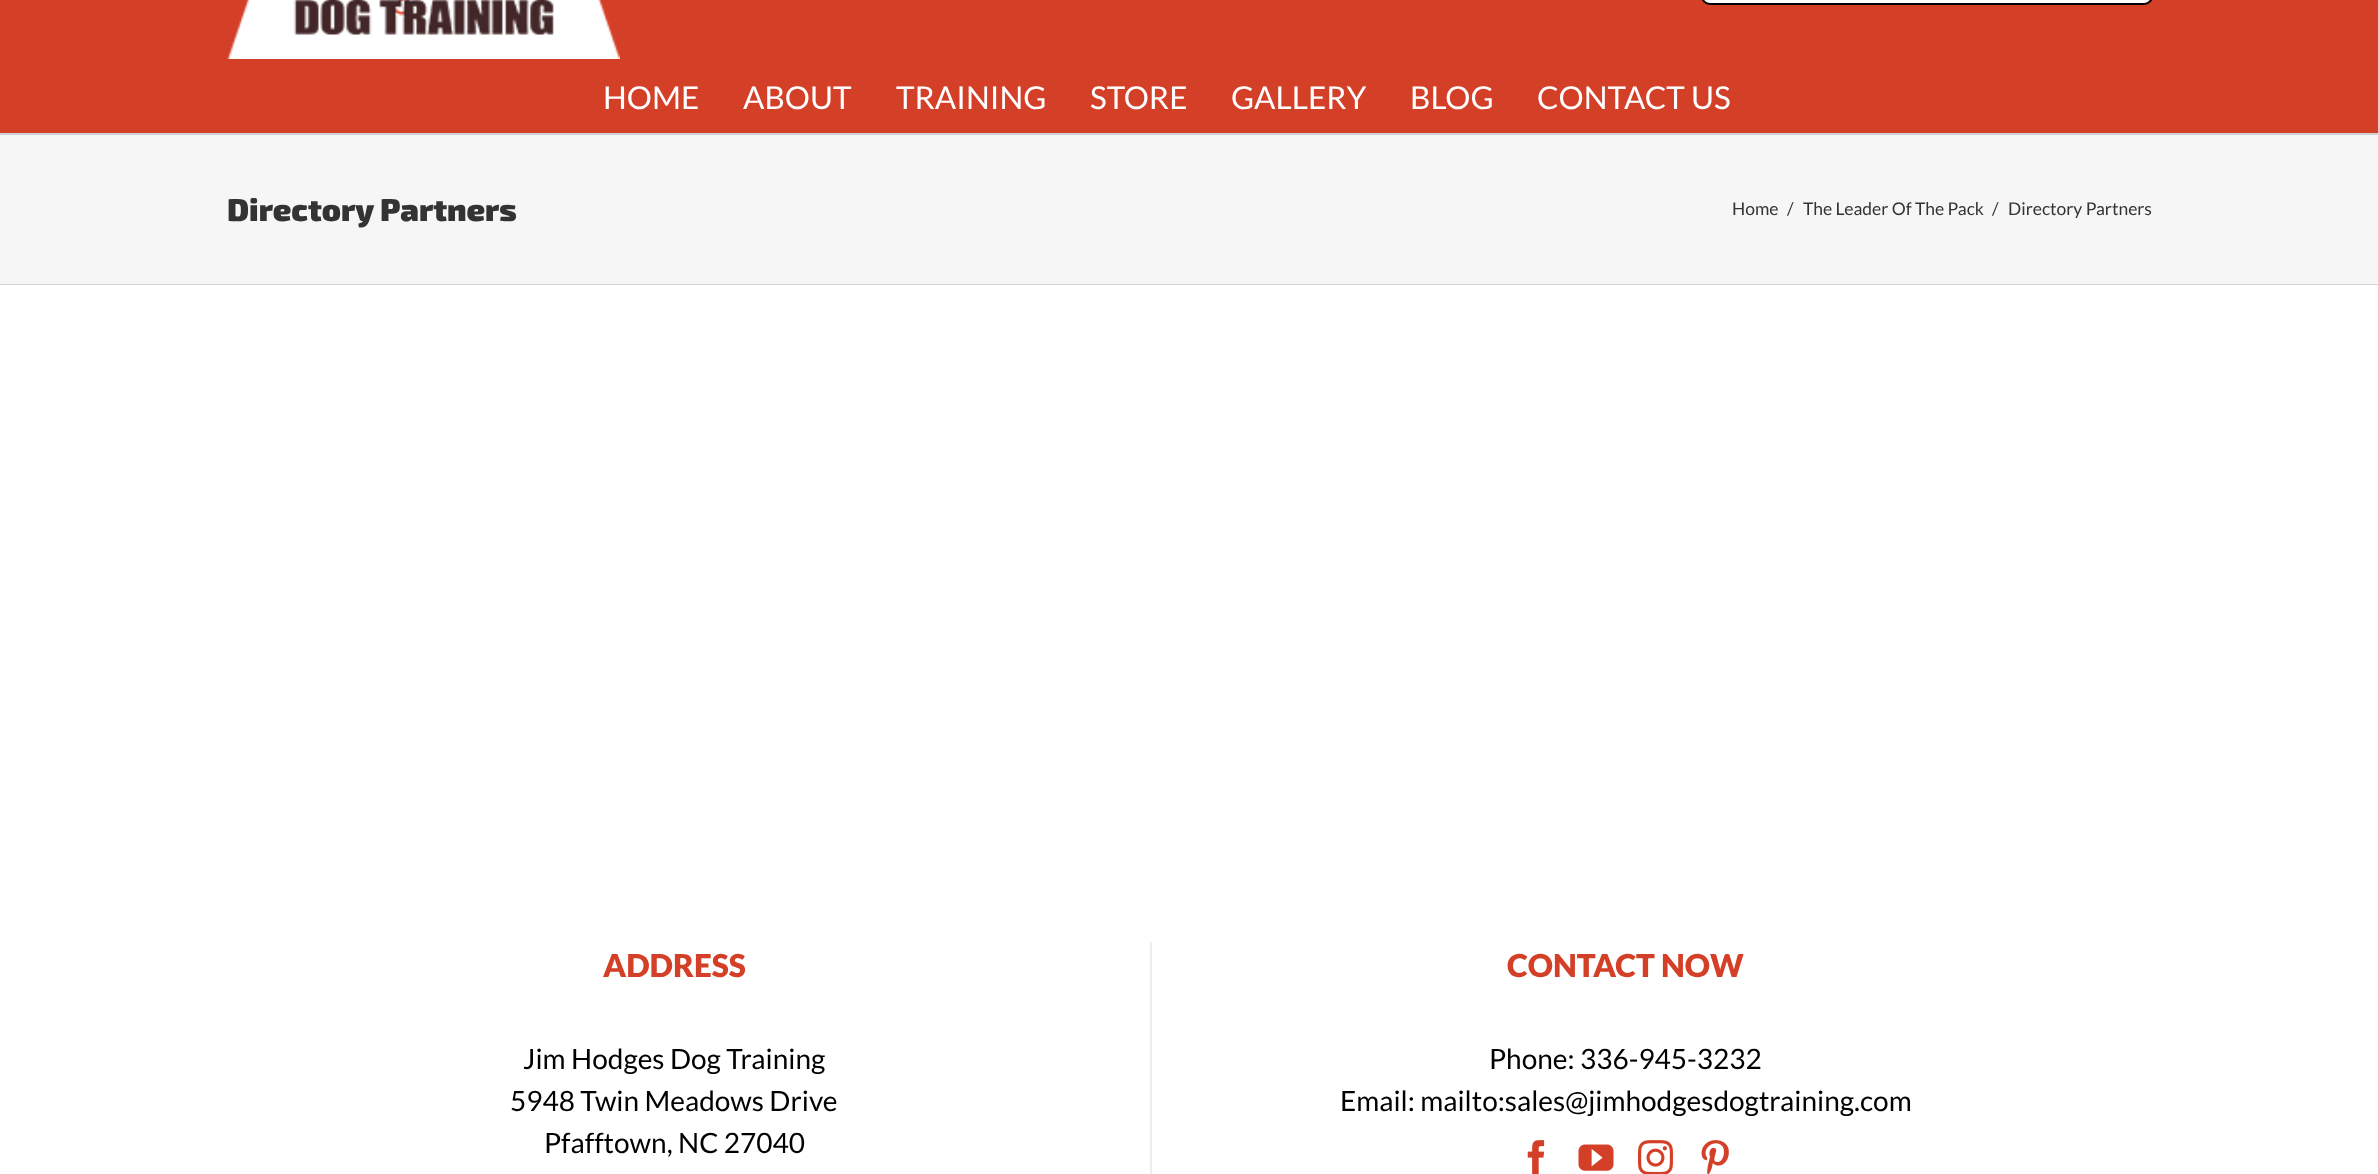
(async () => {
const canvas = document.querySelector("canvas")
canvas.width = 2378
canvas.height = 1174
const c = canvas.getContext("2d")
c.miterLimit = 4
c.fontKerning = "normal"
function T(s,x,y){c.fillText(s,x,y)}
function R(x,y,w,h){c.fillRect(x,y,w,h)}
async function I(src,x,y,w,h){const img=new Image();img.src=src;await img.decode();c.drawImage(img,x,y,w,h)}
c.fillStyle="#fff"
R(0,0,2378,1174)
c.fillStyle="#d43f27"
R(0,0,2378,133)
c.fillStyle="#fff"
c.beginPath()
c.roundRect(1702,-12,450,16,10)
c.fill()
c.strokeStyle="#000"
c.lineWidth=2
c.stroke()
await I("1.png",227,0,393,59)
c.font="31.5px Lato"
T("HOME",603,109)
T("ABOUT",743,109)
T("TRAINING",896,109)
T("STORE",1090,109)
T("GALLERY",1231,109)
T("BLOG",1410,109)
T("CONTACT US",1537,109)
c.fillStyle="#f6f6f6"
R(0,135,2378,149)
c.fillStyle="#d2d3d4"
R(0,133,2378,2)
R(0,284,2378,1)
c.font="900 31.5px 'Exo 2'"
c.fillStyle="#333"
T("Directory Partners",227,221)
c.font="17.5px Lato"
T("Home",1732,215)
T("/",1787,215)
T("The Leader Of The Pack",1803,215)
T("/",1992,215)
T("Directory Partners",2008,215)
c.font="900 31.5px Lato"
c.fillStyle="#d43f27"
T("ADDRESS",603,977)
c.font="28px Lato"
c.fillStyle="#000"
T("Jim Hodges Dog Training",523,1069)
T("5948 Twin Meadows Drive",510,1111)
T("Pfafftown, NC 27040",544,1153)
c.fillStyle="#ededed"
R(1150,942,2,232)
c.font="900 31.5px Lato"
c.fillStyle="#d43f27"
T("CONTACT NOW",1507,977)
c.font="28px Lato"
c.fillStyle="#000"
T("Phone: 336-945-3232",1489,1069)
T("Email: mailto:sales@jimhodgesdogtraining.com",1340,1111)
await I("2.png",1527,1140,18,34)
await I("3.png",1578,1144,36,27)
await I("4.png",1638,1140,35,34)
await I("5.png",1701,1140,28,34)
})()
